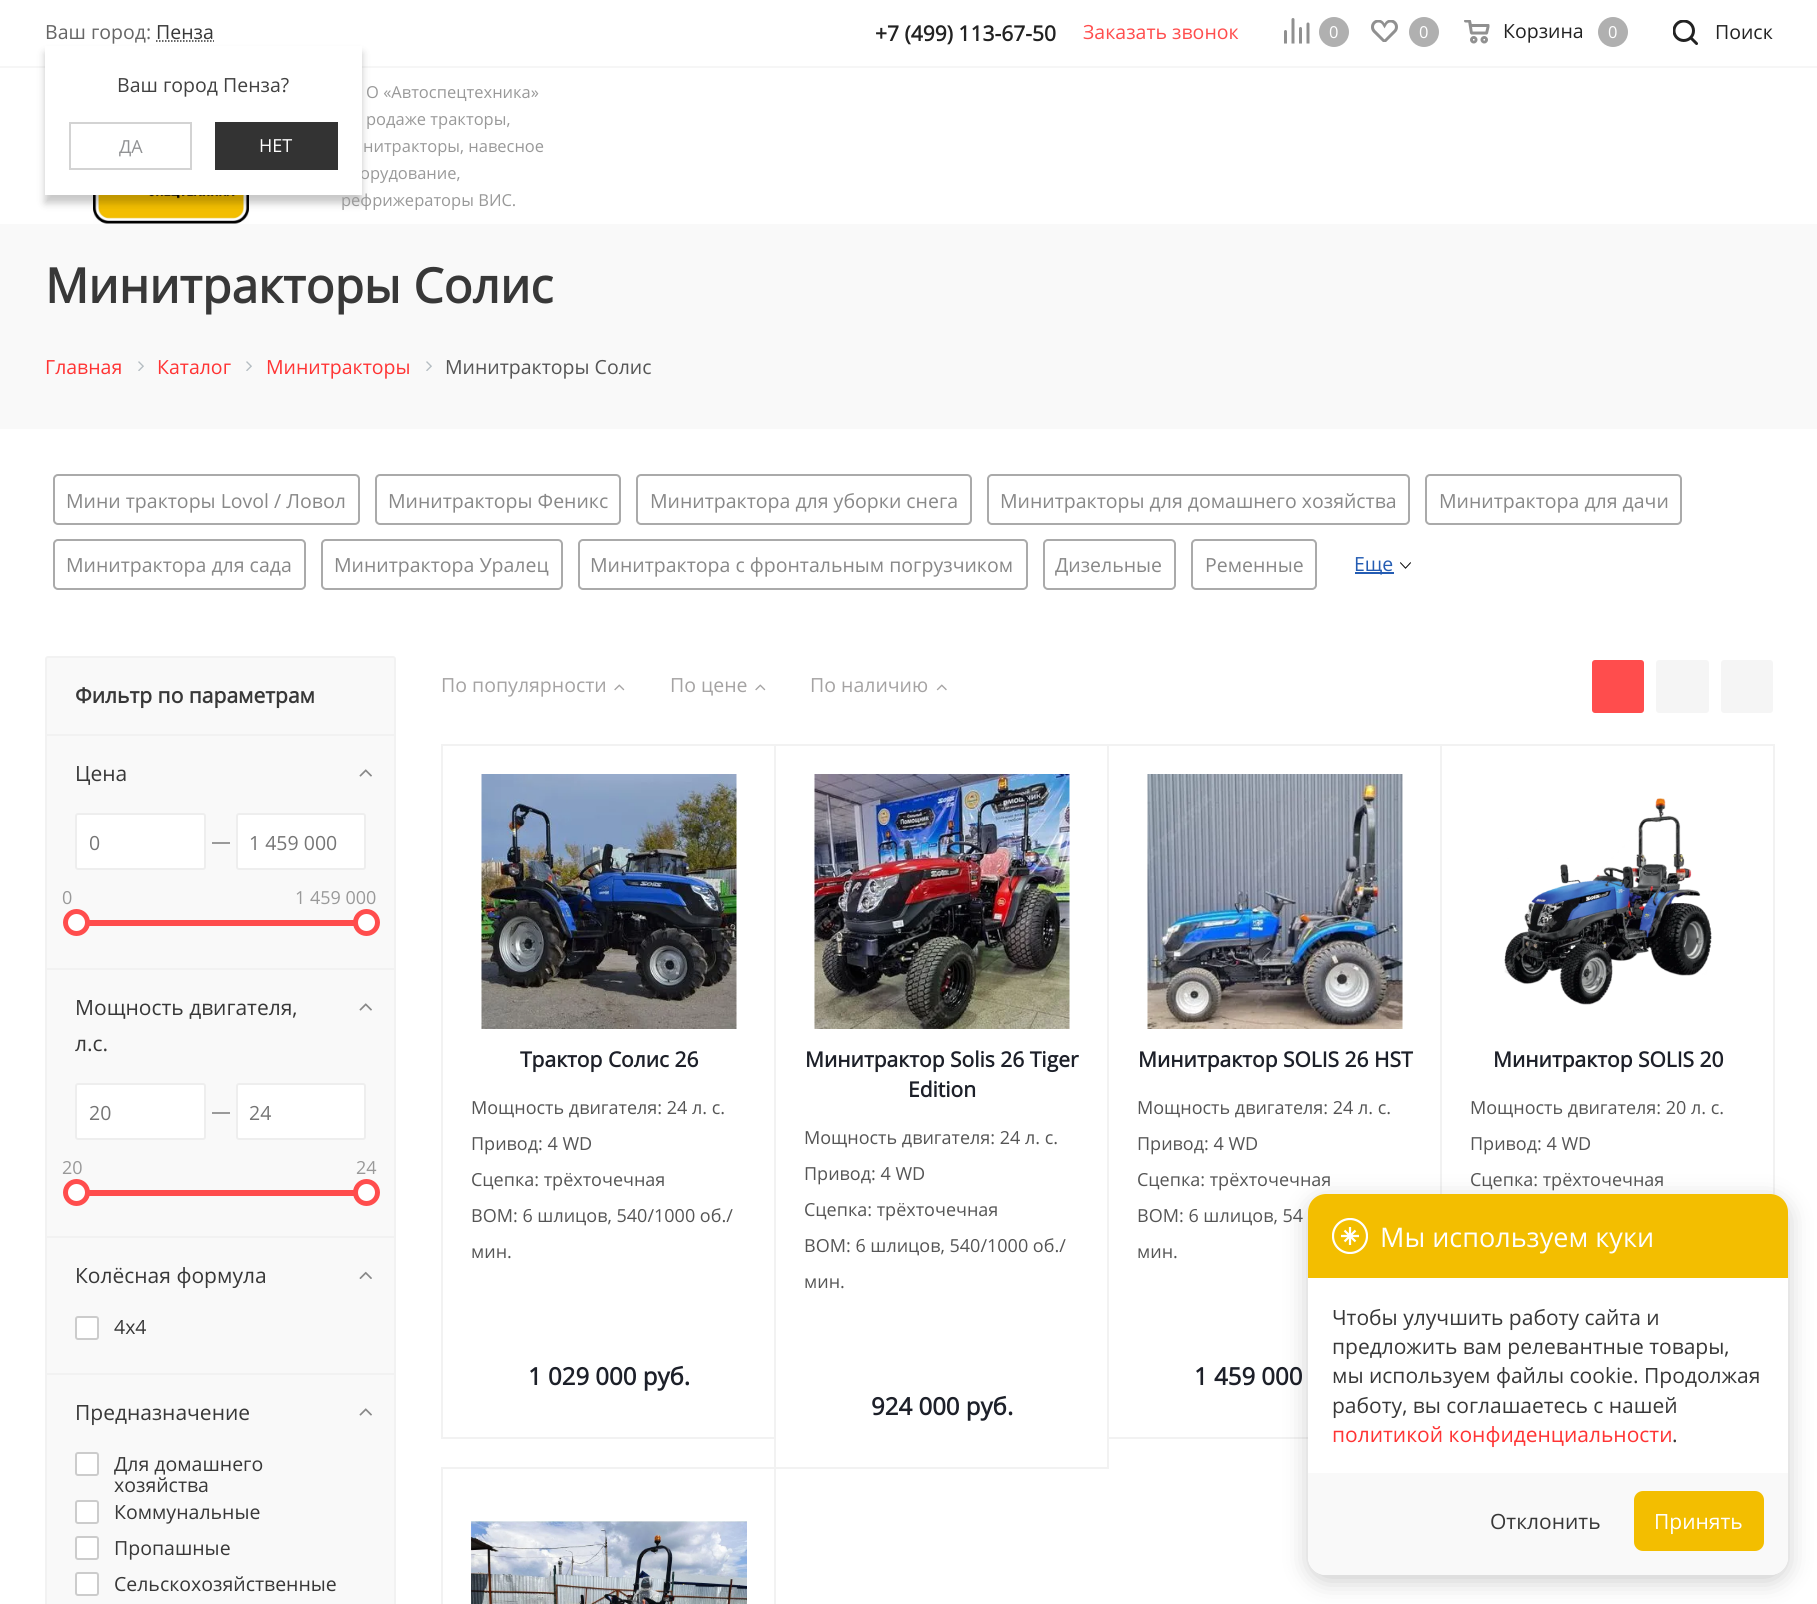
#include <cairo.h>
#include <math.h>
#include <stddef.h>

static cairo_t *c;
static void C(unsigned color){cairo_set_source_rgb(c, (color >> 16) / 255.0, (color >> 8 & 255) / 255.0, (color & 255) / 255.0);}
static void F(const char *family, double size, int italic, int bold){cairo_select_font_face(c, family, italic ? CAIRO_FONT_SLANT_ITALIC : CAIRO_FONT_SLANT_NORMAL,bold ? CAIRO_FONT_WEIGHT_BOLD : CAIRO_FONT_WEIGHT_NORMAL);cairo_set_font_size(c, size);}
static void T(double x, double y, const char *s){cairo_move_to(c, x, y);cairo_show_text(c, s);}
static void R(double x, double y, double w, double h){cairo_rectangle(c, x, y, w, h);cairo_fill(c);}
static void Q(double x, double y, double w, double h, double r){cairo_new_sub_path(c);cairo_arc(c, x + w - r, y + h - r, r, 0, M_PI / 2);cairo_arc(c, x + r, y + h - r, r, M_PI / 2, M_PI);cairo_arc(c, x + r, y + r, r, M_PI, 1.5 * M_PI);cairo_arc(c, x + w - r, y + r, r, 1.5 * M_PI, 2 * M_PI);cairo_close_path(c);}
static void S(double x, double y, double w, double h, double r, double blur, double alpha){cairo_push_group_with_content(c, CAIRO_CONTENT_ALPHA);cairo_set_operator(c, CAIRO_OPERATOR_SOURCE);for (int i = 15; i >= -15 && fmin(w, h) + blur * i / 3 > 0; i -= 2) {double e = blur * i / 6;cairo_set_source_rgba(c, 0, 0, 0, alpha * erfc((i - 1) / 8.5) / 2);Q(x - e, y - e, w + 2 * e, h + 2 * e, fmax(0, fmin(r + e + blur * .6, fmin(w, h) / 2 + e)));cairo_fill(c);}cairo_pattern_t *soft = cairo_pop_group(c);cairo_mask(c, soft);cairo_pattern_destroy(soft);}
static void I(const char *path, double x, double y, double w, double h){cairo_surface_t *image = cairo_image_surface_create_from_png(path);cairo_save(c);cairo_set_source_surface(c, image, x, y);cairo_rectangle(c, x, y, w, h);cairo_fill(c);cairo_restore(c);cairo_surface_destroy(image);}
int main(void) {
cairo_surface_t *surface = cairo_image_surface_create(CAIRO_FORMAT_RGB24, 1817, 1604);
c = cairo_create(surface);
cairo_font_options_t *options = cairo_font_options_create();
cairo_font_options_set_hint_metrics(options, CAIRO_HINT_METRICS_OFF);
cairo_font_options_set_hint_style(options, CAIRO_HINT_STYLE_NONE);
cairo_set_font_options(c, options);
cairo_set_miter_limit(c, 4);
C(0xffffff);
cairo_paint(c);
C(0xf6f6f6);
R(0,66,1817,2);
F("Open Sans",19.5,0,0);
C(0x666666);
T(45,39,"Ваш город:");
C(0x383838);
T(156,39,"Пенза");
cairo_new_path(c);
cairo_move_to(c,156,41);
cairo_line_to(c,214,41);
C(0x333333);
cairo_set_line_width(c,1.5);
cairo_set_dash(c,(double[]){1.5,1.5},2,0);
cairo_stroke(c);
I("5.png",93,195,156,29);
C(0x000000);
S(45,53,317,150,0,4,.22);
F("Open Sans",16.5,0,0);
C(0x999999);
T(360,179,"орудование,");
T(341,206,"рефрижераторы ВИС.");
C(0xffffff);
R(45,46,317,149);
F("Open Sans",19.5,0,0);
C(0x414141);
T(117,92,"Ваш город Пенза?");
cairo_rectangle(c,70,123,121,46);
C(0xd3d3d3);
cairo_set_line_width(c,2);
cairo_set_dash(c,NULL,0,0);
cairo_stroke(c);
F("Open Sans",18,0,0);
C(0x919294);
T(119,153,"ДА");
C(0x333333);
R(215,122,123,48);
C(0xffffff);
T(259,152,"НЕТ");
F("Open Sans",21,0,1);
C(0x222222);
T(875,41,"+7 (499) 113-67-50");
F("Open Sans",19.5,0,0);
C(0xff4d4d);
T(1083,39,"Заказать звонок");
I("1.png",1284,18,26,26);
C(0xb0b0b0);
cairo_arc(c,1334,32,15,0,2 * M_PI);
cairo_fill(c);
F("Open Sans",16.5,0,0);
C(0xffffff);
T(1329,38,"0");
I("2.png",1371,20,27,22);
C(0xb0b0b0);
cairo_arc(c,1424,32,15,0,2 * M_PI);
cairo_fill(c);
C(0xffffff);
T(1419,38,"0");
I("3.png",1464,20,26,24);
F("Open Sans",19.5,0,0);
C(0x222222);
T(1503,38,"Корзина");
C(0xb0b0b0);
cairo_new_path(c);
cairo_arc(c,1613,32,15,0,2 * M_PI);
cairo_fill(c);
F("Open Sans",16.5,0,0);
C(0xffffff);
T(1608,38,"0");
I("4.png",1673,20,25,25);
F("Open Sans",19.5,0,0);
C(0x222222);
T(1715,39,"Поиск");
F("Open Sans",16.5,0,0);
C(0x999999);
T(366,98,"О «Автоспецтехника»");
T(366,125,"родаже тракторы,");
T(363,152,"нитракторы, навесное");
C(0xf9f9f9);
R(0,224,1817,205);
F("Open Sans",48,0,1);
C(0x383838);
T(45,303,"Минитракторы Солис");
F("Open Sans",19.5,0,0);
C(0xff3434);
T(45,374,"Главная");
I("6.png",138,361,6,10);
T(157,374,"Каталог");
I("6.png",246,361,6,10);
T(266,374,"Минитракторы");
I("6.png",426,361,6,10);
C(0x555555);
T(445,374,"Минитракторы Солис");
Q(54,475,305,49,4);
C(0xaaaaaa);
cairo_stroke(c);
C(0x888888);
T(66,508,"Мини тракторы Lovol / Ловол");
Q(376,475,244,49,4);
C(0xaaaaaa);
cairo_stroke(c);
C(0x888888);
T(388,508,"Минитракторы Феникс");
Q(637,475,334,49,4);
C(0xaaaaaa);
cairo_stroke(c);
C(0x888888);
T(650,508,"Минитрактора для уборки снега");
Q(988,475,421,49,4);
C(0xaaaaaa);
cairo_stroke(c);
C(0x888888);
T(1000,508,"Минитракторы для домашнего хозяйства");
Q(1426,475,255,49,4);
C(0xaaaaaa);
cairo_stroke(c);
C(0x888888);
T(1439,508,"Минитрактора для дачи");
Q(54,540,251,49,4);
C(0xaaaaaa);
cairo_stroke(c);
C(0x888888);
T(66,572,"Минитрактора для сада");
Q(322,540,240,49,4);
C(0xaaaaaa);
cairo_stroke(c);
C(0x888888);
T(334,572,"Минитрактора Уралец");
Q(579,540,448,49,4);
C(0xaaaaaa);
cairo_stroke(c);
C(0x888888);
T(590,572,"Минитрактора с фронтальным погрузчиком");
Q(1044,540,131,49,4);
C(0xaaaaaa);
cairo_stroke(c);
C(0x888888);
T(1055,572,"Дизельные");
Q(1192,540,124,49,4);
C(0xaaaaaa);
cairo_stroke(c);
C(0x888888);
T(1205,572,"Ременные");
C(0x245cb3);
R(1355,572,39,2);
T(1354,571,"Еще");
I("7.png",1400,562,11,7);
C(0xf9f9f9);
Q(46,657,349,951,2);
cairo_fill_preserve(c);
C(0xf2f2f2);
cairo_stroke(c);
R(47,734,348,2);
F("Open Sans",21,0,1);
C(0x383838);
T(75,703,"Фильтр по параметрам");
C(0xf2f2f2);
R(47,968,348,2);
F("Open Sans",21,0,0);
C(0x383838);
T(75,781,"Цена");
I("8.png",359,769,13,8);
C(0xffffff);
Q(76,814,129,55,2);
cairo_fill_preserve(c);
C(0xeeeeee);
cairo_stroke(c);
F("Open Sans",19.5,0,0);
C(0x757575);
T(89,850,"0");
C(0x9a9a9a);
R(212,842,18,2);
C(0xffffff);
Q(237,814,128,55,2);
cairo_fill_preserve(c);
C(0xeeeeee);
cairo_stroke(c);
C(0x757575);
T(249,850,"1 459 000");
F("Open Sans",18,0,0);
C(0x999999);
T(62,904,"0");
T(295,904,"1 459 000");
C(0xff4d4d);
R(89,920,265,6);
C(0xffffff);
cairo_new_path(c);
cairo_arc(c,76.5,922.5,11,0,2 * M_PI);
cairo_fill_preserve(c);
C(0xff4d4d);
cairo_set_line_width(c,5);
cairo_stroke(c);
C(0xffffff);
cairo_arc(c,366.5,922.5,11,0,2 * M_PI);
cairo_fill_preserve(c);
C(0xff4d4d);
cairo_stroke(c);
C(0xf2f2f2);
R(47,1236,348,2);
F("Open Sans",21,0,0);
C(0x383838);
T(75,1015,"Мощность двигателя,");
T(75,1051,"л.с.");
I("8.png",359,1003,13,8);
C(0xffffff);
Q(76,1084,129,55,2);
cairo_fill_preserve(c);
C(0xeeeeee);
cairo_set_line_width(c,2);
cairo_stroke(c);
F("Open Sans",19.5,0,0);
C(0x757575);
T(89,1120,"20");
C(0x9a9a9a);
R(212,1112,18,2);
C(0xffffff);
Q(237,1084,128,55,2);
cairo_fill_preserve(c);
C(0xeeeeee);
cairo_stroke(c);
C(0x757575);
T(249,1120,"24");
F("Open Sans",18,0,0);
C(0x999999);
T(62,1174,"20");
T(356,1174,"24");
C(0xff4d4d);
R(89,1190,265,6);
C(0xffffff);
cairo_new_path(c);
cairo_arc(c,76.5,1192.5,11,0,2 * M_PI);
cairo_fill_preserve(c);
C(0xff4d4d);
cairo_set_line_width(c,5);
cairo_stroke(c);
C(0xffffff);
cairo_arc(c,366.5,1192.5,11,0,2 * M_PI);
cairo_fill_preserve(c);
C(0xff4d4d);
cairo_stroke(c);
C(0xf2f2f2);
R(47,1373,348,2);
F("Open Sans",21,0,0);
C(0x383838);
T(75,1283,"Колёсная формула");
I("9.png",359,1271,13,8);
C(0xffffff);
Q(76,1317,22,22,2);
cairo_fill_preserve(c);
C(0xcccccc);
cairo_set_line_width(c,2);
cairo_stroke(c);
F("Open Sans",19.5,0,0);
C(0x383838);
T(114,1334,"4х4");
F("Open Sans",21,0,0);
T(75,1420,"Предназначение");
I("8.png",359,1408,13,8);
C(0xffffff);
Q(76,1453,22,22,2);
cairo_fill_preserve(c);
C(0xcccccc);
cairo_stroke(c);
F("Open Sans",19.5,0,0);
C(0x383838);
T(114,1471,"Для домашнего");
T(114,1492,"хозяйства");
C(0xffffff);
Q(76,1501,22,22,2);
cairo_fill_preserve(c);
C(0xcccccc);
cairo_stroke(c);
C(0x383838);
T(114,1519,"Коммунальные");
C(0xffffff);
Q(76,1537,22,22,2);
cairo_fill_preserve(c);
C(0xcccccc);
cairo_stroke(c);
C(0x383838);
T(114,1555,"Пропашные");
C(0xffffff);
Q(76,1573,22,22,2);
cairo_fill_preserve(c);
C(0xcccccc);
cairo_stroke(c);
C(0x383838);
T(114,1591,"Сельскохозяйственные");
C(0xa5a3a3);
T(441,692,"По популярности");
I("10.png",614,684,11,7);
T(670,692,"По цене");
I("10.png",755,684,11,7);
T(810,692,"По наличию");
I("11.png",936,684,11,7);
C(0xff4d4d);
Q(1592,660,52,53,3);
cairo_fill(c);
C(0xf5f5f5);
Q(1656,660,53,53,3);
cairo_fill(c);
Q(1721,660,52,53,3);
cairo_fill(c);
cairo_rectangle(c,442,745,333,693);
C(0xf2f2f2);
cairo_stroke(c);
I("12.png",481,774,256,255);
F("Open Sans",21,0,1);
C(0x1d2029);
T(520,1067,"Трактор Солис 26");
F("Open Sans",18,0,0);
C(0x555555);
T(471,1114,"Мощность двигателя: 24 л. с.");
T(471,1150,"Привод: 4 WD");
T(471,1186,"Сцепка: трёхточечная");
T(471,1222,"ВОМ: 6 шлицов, 540/1000 об./");
T(471,1258,"мин.");
F("Open Sans",24,0,1);
C(0x1d2029);
T(528,1385,"1 029 000 руб.");
cairo_rectangle(c,775,745,333,723);
C(0xf2f2f2);
cairo_stroke(c);
I("13.png",814,774,256,255);
F("Open Sans",21,0,1);
C(0x1d2029);
T(805,1067,"Минитрактор Solis 26 Tiger");
T(908,1097,"Edition");
F("Open Sans",18,0,0);
C(0x555555);
T(804,1144,"Мощность двигателя: 24 л. с.");
T(804,1180,"Привод: 4 WD");
T(804,1216,"Сцепка: трёхточечная");
T(804,1252,"ВОМ: 6 шлицов, 540/1000 об./");
T(804,1288,"мин.");
F("Open Sans",24,0,1);
C(0x1d2029);
T(871,1415,"924 000 руб.");
cairo_rectangle(c,1108,745,333,693);
C(0xf2f2f2);
cairo_stroke(c);
I("14.png",1147,774,256,255);
F("Open Sans",21,0,1);
C(0x1d2029);
T(1138,1067,"Минитрактор SOLIS 26 HST");
F("Open Sans",18,0,0);
C(0x555555);
T(1137,1114,"Мощность двигателя: 24 л. с.");
T(1137,1150,"Привод: 4 WD");
T(1137,1186,"Сцепка: трёхточечная");
T(1137,1222,"ВОМ: 6 шлицов, 54");
T(1137,1258,"мин.");
F("Open Sans",24,0,1);
C(0x1d2029);
T(1194,1385,"1 459 000");
cairo_rectangle(c,1441,745,333,693);
C(0xf2f2f2);
cairo_stroke(c);
I("15.png",1504,798,208,207);
F("Open Sans",21,0,1);
C(0x1d2029);
T(1493,1067,"Минитрактор SOLIS 20");
F("Open Sans",18,0,0);
C(0x555555);
T(1470,1114,"Мощность двигателя: 20 л. с.");
T(1470,1150,"Привод: 4 WD");
T(1470,1186,"Сцепка: трёхточечная");
cairo_rectangle(c,442,1468,333,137);
C(0xf2f2f2);
cairo_stroke(c);
I("16.png",471,1521,276,83);
C(0x000000);
S(1308,1200,480,381,18,12,.2);
C(0xffffff);
Q(1308,1194,480,381,18);
cairo_fill(c);
C(0xf3be00);
cairo_new_path(c);
cairo_move_to(c,1326,1194);
cairo_line_to(c,1770,1194);
cairo_curve_to(c,1780,1194,1788,1202,1788,1212);
cairo_line_to(c,1788,1278);
cairo_line_to(c,1308,1278);
cairo_line_to(c,1308,1212);
cairo_curve_to(c,1308,1202,1316,1194,1326,1194);
cairo_close_path(c);
cairo_fill(c);
cairo_save(c);
cairo_rectangle(c,1332,1218,36,36);
cairo_clip(c);
cairo_arc(c,1350,1236,17,0,2 * M_PI);
C(0xffffff);
cairo_set_line_width(c,2.2);
cairo_stroke(c);
cairo_restore(c);
cairo_new_path(c);
cairo_move_to(c,1350,1227);
cairo_line_to(c,1350,1245);
cairo_move_to(c,1341,1236);
cairo_line_to(c,1359,1236);
cairo_move_to(c,1344.5,1230.5);
cairo_line_to(c,1355.5,1241.5);
cairo_move_to(c,1344.5,1241.5);
cairo_line_to(c,1355.5,1230.5);
C(0xffffff);
cairo_set_line_width(c,2.2);
cairo_stroke(c);
F("Open Sans",27,0,0);
T(1380,1247,"Мы используем куки");
F("Open Sans",21,0,0);
C(0x383838);
T(1332,1325,"Чтобы улучшить работу сайта и");
T(1332,1354,"предложить вам релевантные товары,");
T(1332,1383,"мы используем файлы cookie. Продолжая");
T(1332,1413,"работу, вы соглашаетесь с нашей");
C(0xff3434);
T(1332,1442,"политикой конфиденциальности");
C(0x383838);
T(1672,1442,".");
C(0xf9f9f9);
cairo_new_path(c);
cairo_move_to(c,1308,1473);
cairo_line_to(c,1788,1473);
cairo_line_to(c,1788,1557);
cairo_curve_to(c,1788,1567,1780,1575,1770,1575);
cairo_line_to(c,1326,1575);
cairo_curve_to(c,1316,1575,1308,1567,1308,1557);
cairo_close_path(c);
cairo_fill(c);
C(0x383838);
T(1490,1529,"Отклонить");
C(0xf3be00);
Q(1634,1491,130,60,9);
cairo_fill(c);
C(0xffffff);
T(1654,1529,"Принять");
cairo_surface_write_to_png(surface, "o.png");
cairo_font_options_destroy(options);
cairo_destroy(c);
cairo_surface_destroy(surface);
return 0;
}
